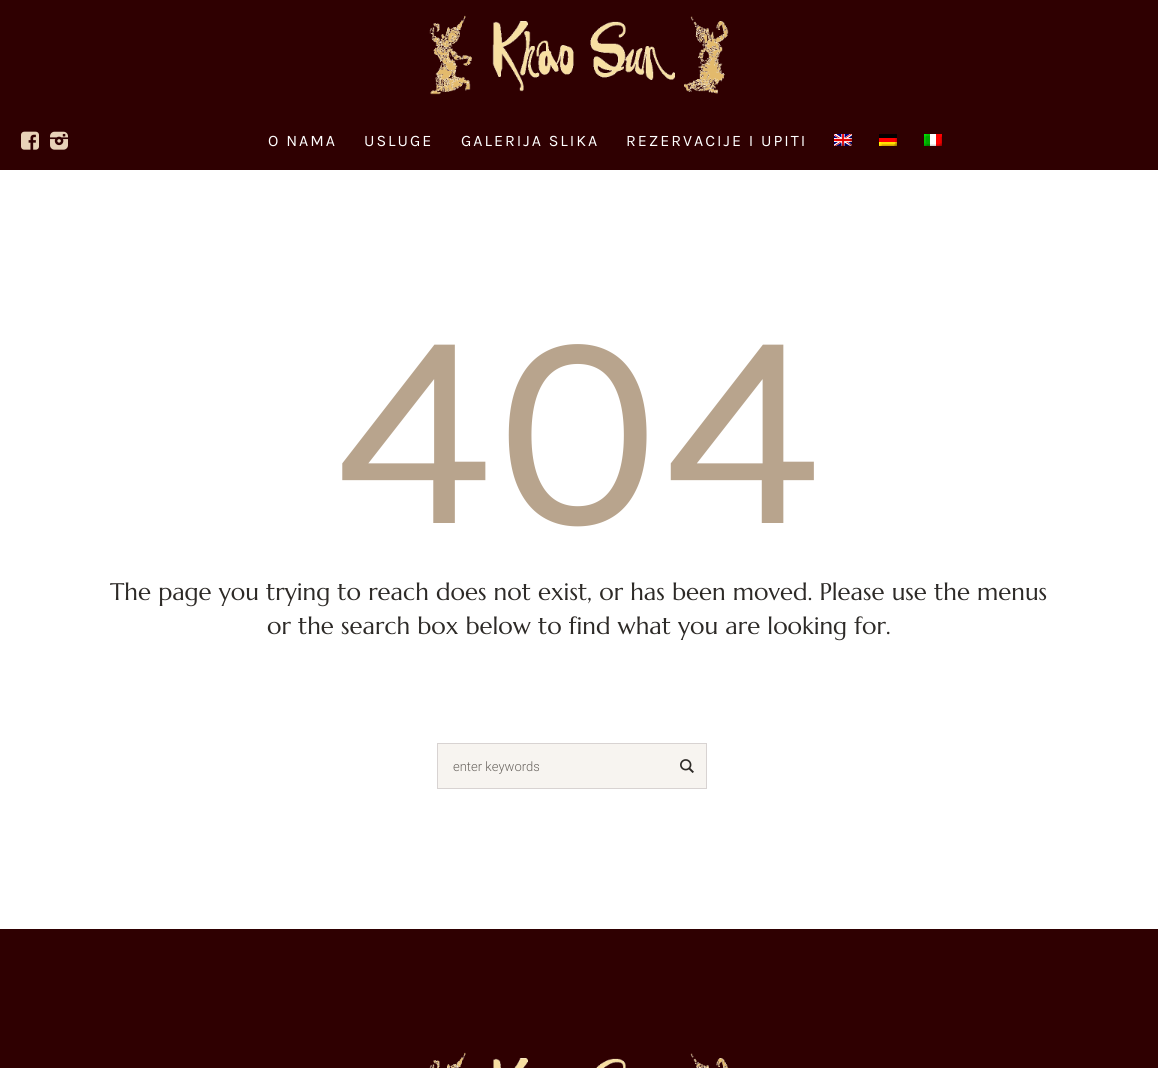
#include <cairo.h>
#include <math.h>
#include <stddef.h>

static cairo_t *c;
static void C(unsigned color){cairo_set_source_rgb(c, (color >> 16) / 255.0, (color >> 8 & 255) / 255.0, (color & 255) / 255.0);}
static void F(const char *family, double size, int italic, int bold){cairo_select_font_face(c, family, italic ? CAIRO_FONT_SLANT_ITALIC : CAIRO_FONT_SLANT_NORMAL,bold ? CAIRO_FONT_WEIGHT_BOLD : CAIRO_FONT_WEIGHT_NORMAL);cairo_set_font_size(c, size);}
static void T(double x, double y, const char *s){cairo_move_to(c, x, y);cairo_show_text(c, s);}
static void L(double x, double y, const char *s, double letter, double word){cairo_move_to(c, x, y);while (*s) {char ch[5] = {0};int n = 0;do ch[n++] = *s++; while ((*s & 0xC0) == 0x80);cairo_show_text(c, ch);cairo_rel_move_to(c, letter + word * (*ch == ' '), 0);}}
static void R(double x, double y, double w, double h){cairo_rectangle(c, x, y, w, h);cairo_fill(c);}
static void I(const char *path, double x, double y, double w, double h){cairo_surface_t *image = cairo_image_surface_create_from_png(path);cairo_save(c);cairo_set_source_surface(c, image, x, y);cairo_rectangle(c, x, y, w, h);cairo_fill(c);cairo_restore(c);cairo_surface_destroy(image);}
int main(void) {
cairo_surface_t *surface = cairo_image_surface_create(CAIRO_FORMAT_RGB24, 1158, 1068);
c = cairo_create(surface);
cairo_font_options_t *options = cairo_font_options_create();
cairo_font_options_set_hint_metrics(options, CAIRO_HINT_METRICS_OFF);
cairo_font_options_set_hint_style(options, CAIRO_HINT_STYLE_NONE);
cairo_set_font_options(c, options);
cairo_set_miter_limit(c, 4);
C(0x2f0001);
cairo_paint(c);
I("1.png",429,15,300,80);
I("2.png",21,131,18,19);
I("3.png",50,131,18,19);
F("Karla",16,0,0);
C(0xffffff);
L(268,146,"O NAMA",2,0);
L(364,146,"USLUGE",2,0);
L(461,146,"GALERIJA SLIKA",2,0);
L(626,146,"REZERVACIJE I UPITI",2,0);
I("4.png",834,134,18,12);
I("5.png",879,134,18,12);
I("6.png",924,134,18,12);
R(0,170,1158,759);
F("Karla",280,0,0);
C(0xb8a48d);
L(335,523,"404",3,0);
F("Marcellus",24,0,0);
C(0x2d2a27);
T(110,600,"The page you trying to reach does not exist, or has been moved. Please use the menus");
T(267,634,"or the search box below to find what you are looking for.");
C(0xf7f4f0);
cairo_rectangle(c,437.5,743.5,269,45);
cairo_fill_preserve(c);
C(0xd8d3d2);
cairo_set_line_width(c,1);
cairo_stroke(c);
F("Roboto Light",13,0,0);
C(0x6a6560);
T(453,771,"enter keywords");
I("7.png",680,759,14,14);
I("8.png",429,1052,300,16);
cairo_surface_write_to_png(surface, "o.png");
cairo_font_options_destroy(options);
cairo_destroy(c);
cairo_surface_destroy(surface);
return 0;
}
